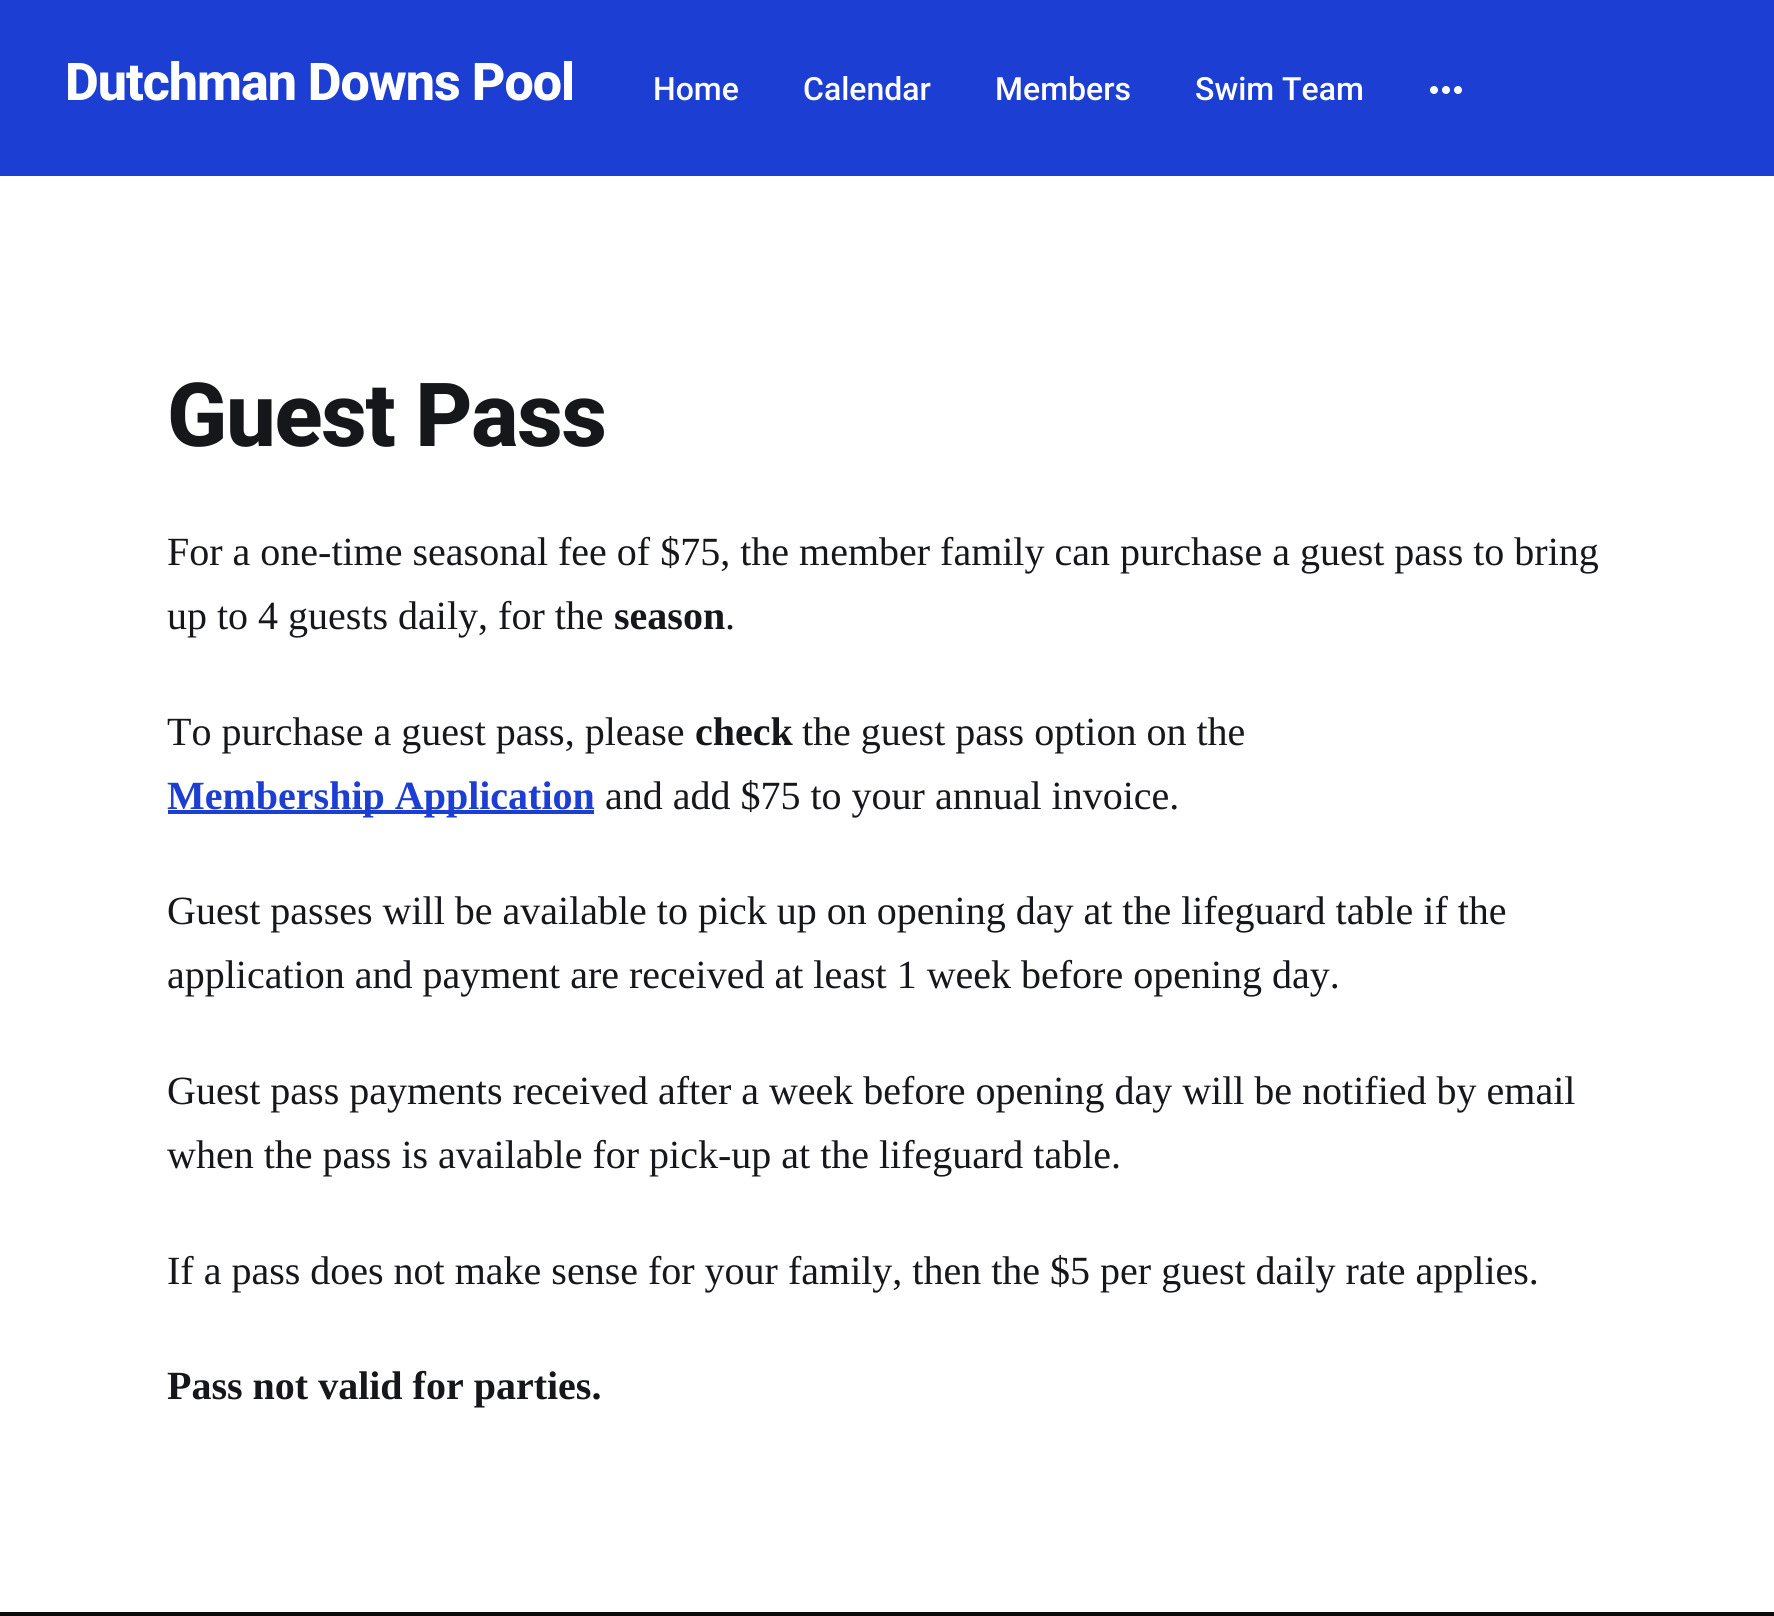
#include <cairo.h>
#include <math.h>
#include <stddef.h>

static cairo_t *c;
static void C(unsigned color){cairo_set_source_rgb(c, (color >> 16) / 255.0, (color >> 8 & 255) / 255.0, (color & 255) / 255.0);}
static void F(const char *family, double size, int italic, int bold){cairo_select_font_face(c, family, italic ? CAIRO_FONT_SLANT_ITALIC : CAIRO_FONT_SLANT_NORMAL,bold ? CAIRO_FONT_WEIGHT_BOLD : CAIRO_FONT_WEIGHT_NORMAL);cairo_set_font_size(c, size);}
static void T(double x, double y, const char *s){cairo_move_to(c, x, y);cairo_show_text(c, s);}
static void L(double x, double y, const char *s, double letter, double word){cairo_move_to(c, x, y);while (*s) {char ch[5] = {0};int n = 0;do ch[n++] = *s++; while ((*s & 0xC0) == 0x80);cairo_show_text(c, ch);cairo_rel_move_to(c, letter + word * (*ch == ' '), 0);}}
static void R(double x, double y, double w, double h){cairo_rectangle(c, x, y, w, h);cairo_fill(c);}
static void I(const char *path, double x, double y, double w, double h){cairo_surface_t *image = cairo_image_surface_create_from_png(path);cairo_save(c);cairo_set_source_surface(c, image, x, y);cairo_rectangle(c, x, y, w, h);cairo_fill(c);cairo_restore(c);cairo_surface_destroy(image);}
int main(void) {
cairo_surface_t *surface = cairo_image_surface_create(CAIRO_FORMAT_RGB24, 1774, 1616);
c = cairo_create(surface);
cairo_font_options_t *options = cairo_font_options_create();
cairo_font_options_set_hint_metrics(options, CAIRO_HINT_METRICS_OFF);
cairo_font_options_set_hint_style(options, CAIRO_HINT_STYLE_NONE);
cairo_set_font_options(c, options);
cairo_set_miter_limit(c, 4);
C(0xffffff);
cairo_paint(c);
C(0x1c3ed3);
R(0,0,1774,176);
F("Roboto ExtraBold",52,0,0);
C(0xffffff);
L(65,100,"Dutchman Downs Pool",-1,0);
F("Roboto Medium",32,0,0);
T(653,100,"Home");
T(803,100,"Calendar");
T(995,100,"Members");
T(1195,100,"Swim Team");
I("1.png",1430,86,32,8);
F("Roboto ExtraBold",88.5,0,0);
C(0x15171a);
L(167,446,"Guest Pass",-1.25,0);
F("Liberation Serif",40,0,0);
T(167,565,"For a one-time seasonal fee of $75, the member family can purchase a guest pass to bring");
T(167,629,"up to 4 guests daily, for the");
F("Liberation Serif",40,0,1);
T(614,629,"season");
F("Liberation Serif",40,0,0);
T(725,629,".");
T(167,745,"To purchase a guest pass, please");
F("Liberation Serif",40,0,1);
T(695,745,"check");
F("Liberation Serif",40,0,0);
T(802,745,"the guest pass option on the");
C(0x1c3ed3);
R(168,810,426,4);
F("Liberation Serif",40,0,1);
T(167,809,"Membership Application");
F("Liberation Serif",40,0,0);
C(0x15171a);
T(605,809,"and add $75 to your annual invoice.");
T(167,924,"Guest passes will be available to pick up on opening day at the lifeguard table if the");
T(167,988,"application and payment are received at least 1 week before opening day.");
T(167,1104,"Guest pass payments received after a week before opening day will be notified by email");
T(167,1168,"when the pass is available for pick-up at the lifeguard table.");
T(167,1284,"If a pass does not make sense for your family, then the $5 per guest daily rate applies.");
F("Liberation Serif",40,0,1);
T(167,1399,"Pass not valid for parties.");
C(0x0a0b0c);
R(0,1612,1774,4);
cairo_surface_write_to_png(surface, "o.png");
cairo_font_options_destroy(options);
cairo_destroy(c);
cairo_surface_destroy(surface);
return 0;
}
